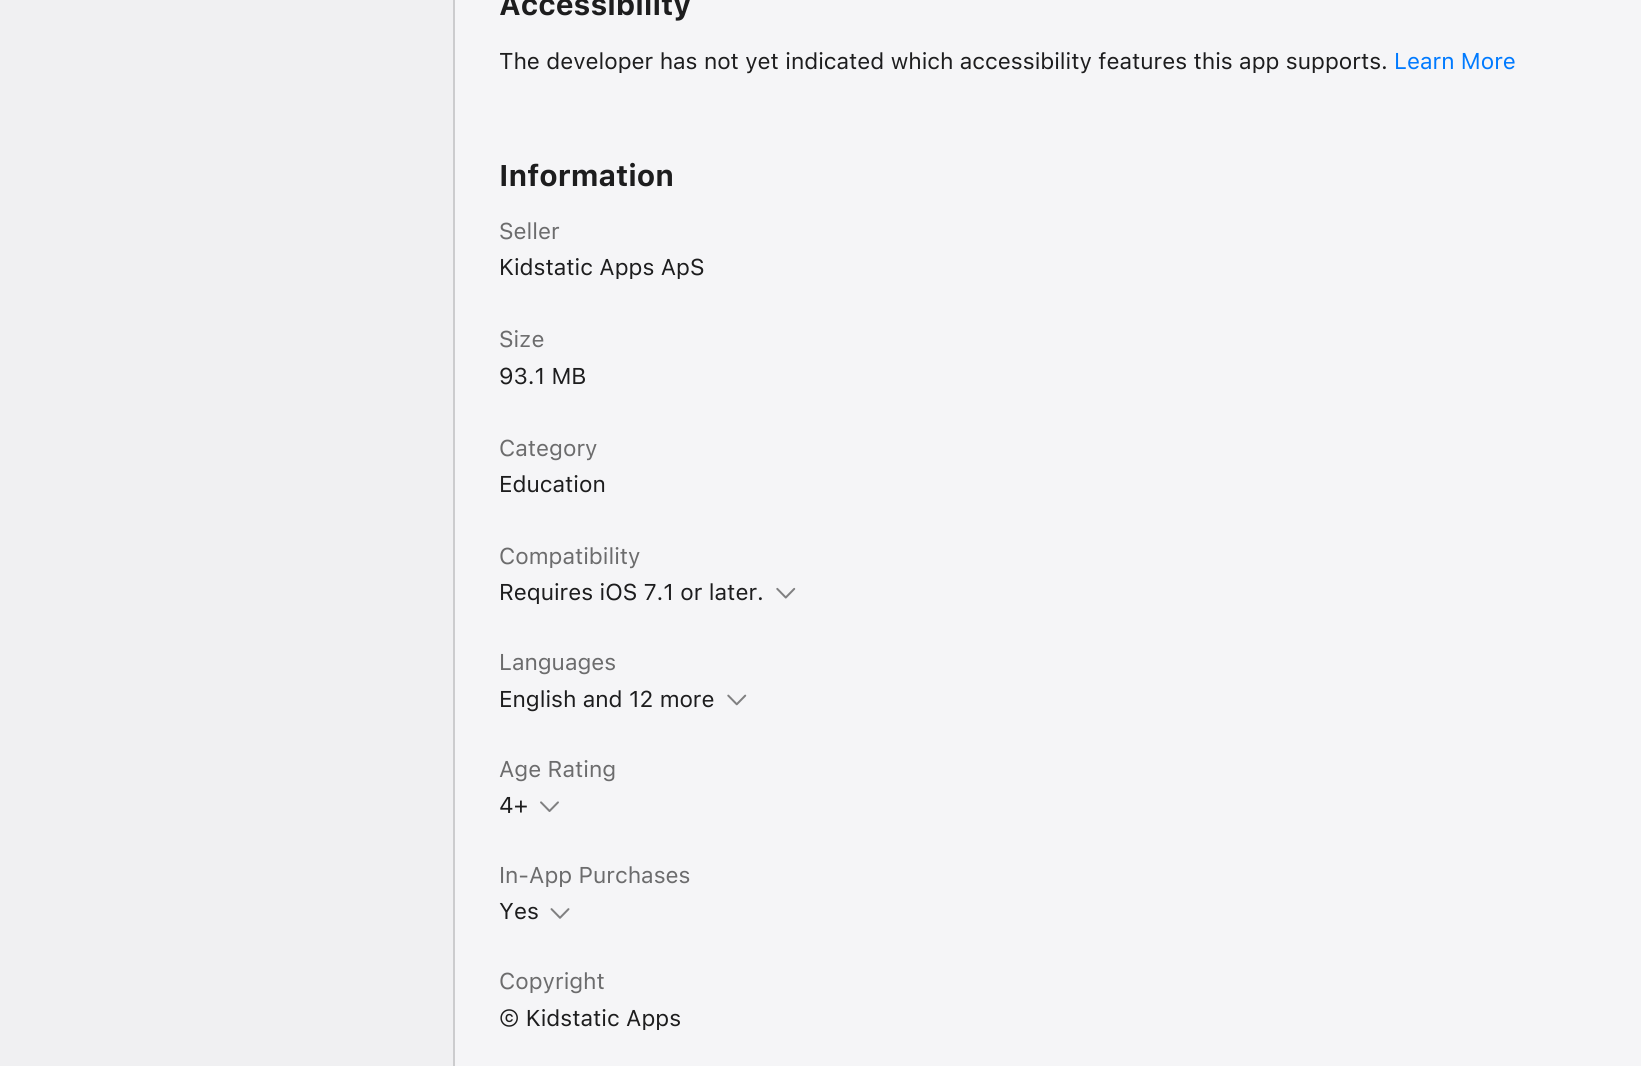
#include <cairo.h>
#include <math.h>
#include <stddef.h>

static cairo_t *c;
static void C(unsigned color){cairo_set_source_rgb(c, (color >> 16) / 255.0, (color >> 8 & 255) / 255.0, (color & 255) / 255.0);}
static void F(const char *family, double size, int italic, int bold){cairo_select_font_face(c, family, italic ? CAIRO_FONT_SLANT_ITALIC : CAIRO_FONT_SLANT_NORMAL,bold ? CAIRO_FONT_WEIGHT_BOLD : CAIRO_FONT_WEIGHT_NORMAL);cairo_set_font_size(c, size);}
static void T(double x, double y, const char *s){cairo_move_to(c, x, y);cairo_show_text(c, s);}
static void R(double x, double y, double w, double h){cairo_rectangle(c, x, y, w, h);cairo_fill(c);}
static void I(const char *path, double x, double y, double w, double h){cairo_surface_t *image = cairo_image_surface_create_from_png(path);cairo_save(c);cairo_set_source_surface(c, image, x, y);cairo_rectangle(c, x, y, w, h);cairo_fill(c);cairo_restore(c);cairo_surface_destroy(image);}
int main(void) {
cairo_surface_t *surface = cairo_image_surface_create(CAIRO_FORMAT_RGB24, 1641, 1066);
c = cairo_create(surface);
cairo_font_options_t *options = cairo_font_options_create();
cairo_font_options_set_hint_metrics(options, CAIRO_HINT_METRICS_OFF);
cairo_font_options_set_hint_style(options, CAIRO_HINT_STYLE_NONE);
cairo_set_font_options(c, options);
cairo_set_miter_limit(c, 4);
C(0xf5f5f7);
cairo_paint(c);
C(0xf0f0f2);
R(0,0,453,1066);
C(0xccccce);
R(453,0,2,1066);
F("SF",29.75,0,1);
C(0x1d1d1e);
T(499,15,"Accessibility");
F("SF",22.75,0,0);
T(499,69,"The developer has not yet indicated which accessibility features this app supports.");
C(0x007aff);
T(1394,69,"Learn More");
F("SF",29.75,0,1);
C(0x1d1d1e);
T(499,186,"Information");
F("SF",22.75,0,0);
C(0x6c6c6d);
T(499,239,"Seller");
C(0x1d1d1e);
T(499,275,"Kidstatic Apps ApS");
C(0x6c6c6d);
T(499,347,"Size");
C(0x1d1d1e);
T(499,384,"93.1 MB");
C(0x6c6c6d);
T(499,456,"Category");
C(0x1d1d1e);
T(499,492,"Education");
C(0x6c6c6d);
T(499,564,"Compatibility");
C(0x1d1d1e);
T(499,600,"Requires iOS 7.1 or later.");
I("1.png",776,587,20,12);
C(0x6c6c6d);
T(499,670,"Languages");
C(0x1d1d1e);
T(499,707,"English and 12 more");
I("2.png",727,694,20,12);
C(0x6c6c6d);
T(499,777,"Age Rating");
C(0x1d1d1e);
T(499,813,"4+");
I("3.png",540,801,19,11);
C(0x6c6c6d);
T(499,883,"In-App Purchases");
C(0x1d1d1e);
T(499,919,"Yes");
I("4.png",550,908,20,11);
C(0x6c6c6d);
T(499,989,"Copyright");
C(0x1d1d1e);
T(499,1026,"© Kidstatic Apps");
cairo_surface_write_to_png(surface, "o.png");
cairo_font_options_destroy(options);
cairo_destroy(c);
cairo_surface_destroy(surface);
return 0;
}
